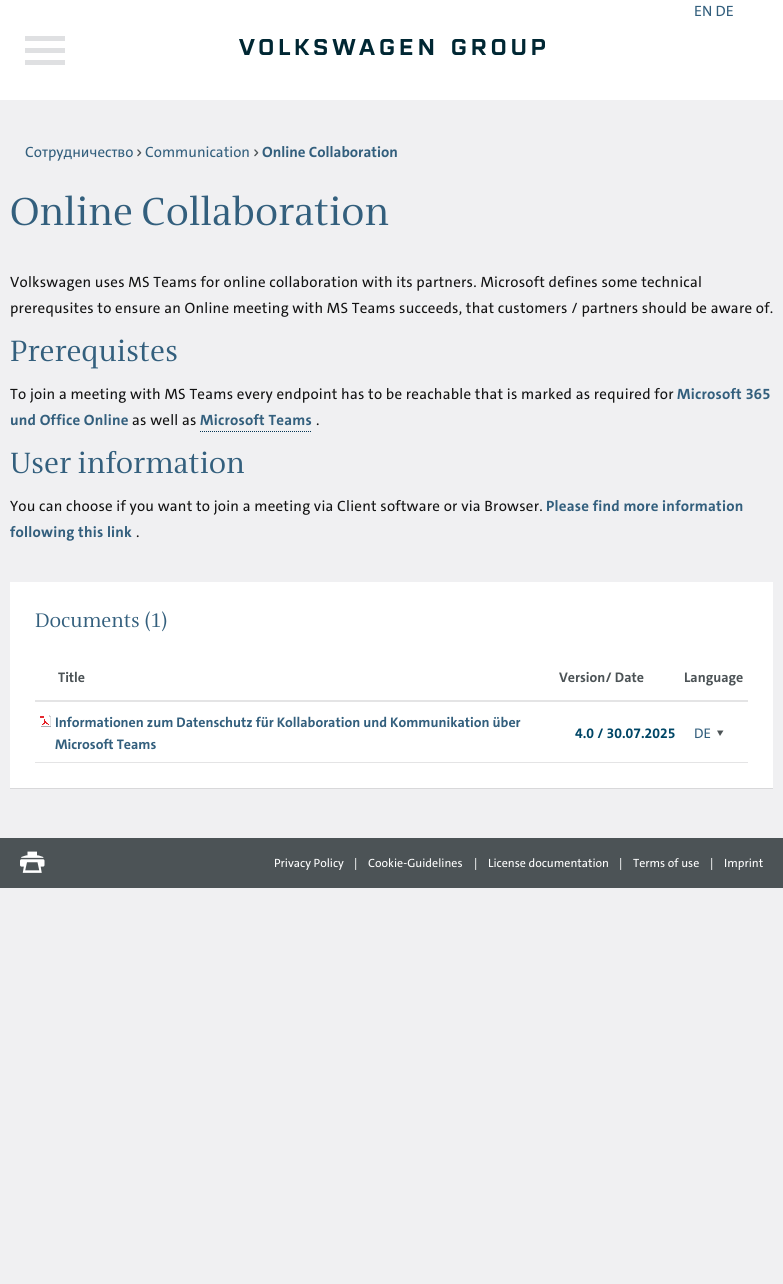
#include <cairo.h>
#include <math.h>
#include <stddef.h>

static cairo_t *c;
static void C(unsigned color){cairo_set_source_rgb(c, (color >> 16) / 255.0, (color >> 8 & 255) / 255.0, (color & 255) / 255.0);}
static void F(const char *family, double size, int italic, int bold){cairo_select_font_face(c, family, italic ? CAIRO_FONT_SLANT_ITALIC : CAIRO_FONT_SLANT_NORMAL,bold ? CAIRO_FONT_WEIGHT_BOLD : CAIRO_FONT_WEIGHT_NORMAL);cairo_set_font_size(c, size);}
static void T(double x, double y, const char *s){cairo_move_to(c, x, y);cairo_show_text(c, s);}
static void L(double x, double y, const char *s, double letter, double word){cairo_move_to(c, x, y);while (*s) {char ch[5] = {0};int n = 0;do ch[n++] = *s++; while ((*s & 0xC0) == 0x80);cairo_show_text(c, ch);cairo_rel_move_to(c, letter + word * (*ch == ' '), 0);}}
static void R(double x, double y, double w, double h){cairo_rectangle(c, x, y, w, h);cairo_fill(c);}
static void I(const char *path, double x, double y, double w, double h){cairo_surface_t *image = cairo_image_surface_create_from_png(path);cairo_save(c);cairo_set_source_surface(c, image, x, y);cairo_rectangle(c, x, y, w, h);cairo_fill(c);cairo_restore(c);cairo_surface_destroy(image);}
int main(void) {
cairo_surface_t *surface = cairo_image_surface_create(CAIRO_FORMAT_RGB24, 783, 1284);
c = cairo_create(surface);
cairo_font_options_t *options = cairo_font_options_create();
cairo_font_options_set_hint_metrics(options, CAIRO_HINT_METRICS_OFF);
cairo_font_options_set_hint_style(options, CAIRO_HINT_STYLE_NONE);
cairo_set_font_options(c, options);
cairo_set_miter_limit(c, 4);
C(0xf0f0f2);
cairo_paint(c);
C(0xffffff);
R(0,0,783,100);
I("1.png",239,39,306,16);
F("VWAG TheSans",15,0,0);
C(0x335f7d);
T(694,16,"EN DE");
C(0xdfe0e2);
R(25,36,40,5);
R(25,48,40,5);
R(25,60,40,5);
C(0x335f7d);
T(25,157,"Сотрудничество");
I("2.png",137,149,5,8);
T(145,157,"Communication");
I("2.png",254,149,5,8);
F("VWAG TheSans",15,0,1);
T(262,157,"Online Collaboration");
F("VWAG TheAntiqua",40,0,0);
T(10,225,"Online Collaboration");
F("VWAG TheSans",15,0,0);
C(0x131313);
L(10,287,"Volkswagen uses MS Teams for online collaboration with its partners. Microsoft defines some technical",.23,0);
L(10,313,"prerequsites to ensure an Online meeting with MS Teams succeeds, that customers / partners should be aware of.",.23,0);
F("VWAG TheAntiqua",30,0,0);
C(0x335f7d);
T(10,361,"Prerequistes");
F("VWAG TheSans",15,0,0);
C(0x131313);
L(10,399,"To join a meeting with MS Teams every endpoint has to be reachable that is marked as required for",.23,0);
F("VWAG TheSans",15,0,1);
C(0x335f7d);
L(677,399,"Microsoft 365",.23,0);
L(10,425,"und Office Online",.23,0);
F("VWAG TheSans",15,0,0);
C(0x131313);
L(132,425,"as well as",.23,0);
F("VWAG TheSans",15,0,1);
C(0x335f7d);
L(200,425,"Microsoft Teams",.23,0);
cairo_new_path(c);
cairo_move_to(c,200,431.5);
cairo_line_to(c,312,431.5);
C(0x053654);
cairo_set_line_width(c,1);
cairo_set_dash(c,(double[]){1,1},2,0);
cairo_stroke(c);
F("VWAG TheSans",15,0,0);
C(0x131313);
L(316,425,".",.23,0);
F("VWAG TheAntiqua",30,0,0);
C(0x335f7d);
T(10,473,"User information");
F("VWAG TheSans",15,0,0);
C(0x131313);
L(10,511,"You can choose if you want to join a meeting via Client software or via Browser.",.23,0);
F("VWAG TheSans",15,0,1);
C(0x335f7d);
L(546,511,"Please find more information",.23,0);
L(10,537,"following this link",.23,0);
F("VWAG TheSans",15,0,0);
C(0x131313);
L(136,537,".",.23,0);
C(0xd8d8da);
R(10,788,763,1);
C(0xffffff);
R(10,582,763,206);
F("VWAG TheAntiqua",20,0,0);
C(0x335f7d);
T(35,627,"Documents (1)");
C(0xe4e4e5);
R(35,700,713,2);
F("VWAG TheSans",14,0,1);
C(0x4c5356);
T(58,682,"Title");
T(559,682,"Version/ Date");
T(684,682,"Language");
C(0xe4e4e5);
R(35,762,713,1);
I("3.png",40,715,11,12);
C(0x335f7d);
T(55,727,"Informationen zum Datenschutz für Kollaboration und Kommunikation über");
T(55,749,"Microsoft Teams");
C(0x004666);
T(575,738,"4.0 / 30.07.2025");
F("VWAG TheSans",14,0,0);
C(0x335f7d);
T(694,738,"DE");
C(0x4c5356);
cairo_new_path(c);
cairo_move_to(c,723.5,730.5);
cairo_line_to(c,720,736);
cairo_line_to(c,717,730.5);
cairo_close_path(c);
cairo_fill(c);
R(0,838,783,50);
I("4.png",20,851,25,22);
F("VWAG TheSans",12,0,0);
C(0xffffff);
T(274,867,"Privacy Policy");
T(354,867,"|");
T(368,867,"Cookie-Guidelines");
T(474,867,"|");
T(488,867,"License documentation");
T(619,867,"|");
T(633,867,"Terms of use");
T(710,867,"|");
T(724,867,"Imprint");
cairo_surface_write_to_png(surface, "o.png");
cairo_font_options_destroy(options);
cairo_destroy(c);
cairo_surface_destroy(surface);
return 0;
}
